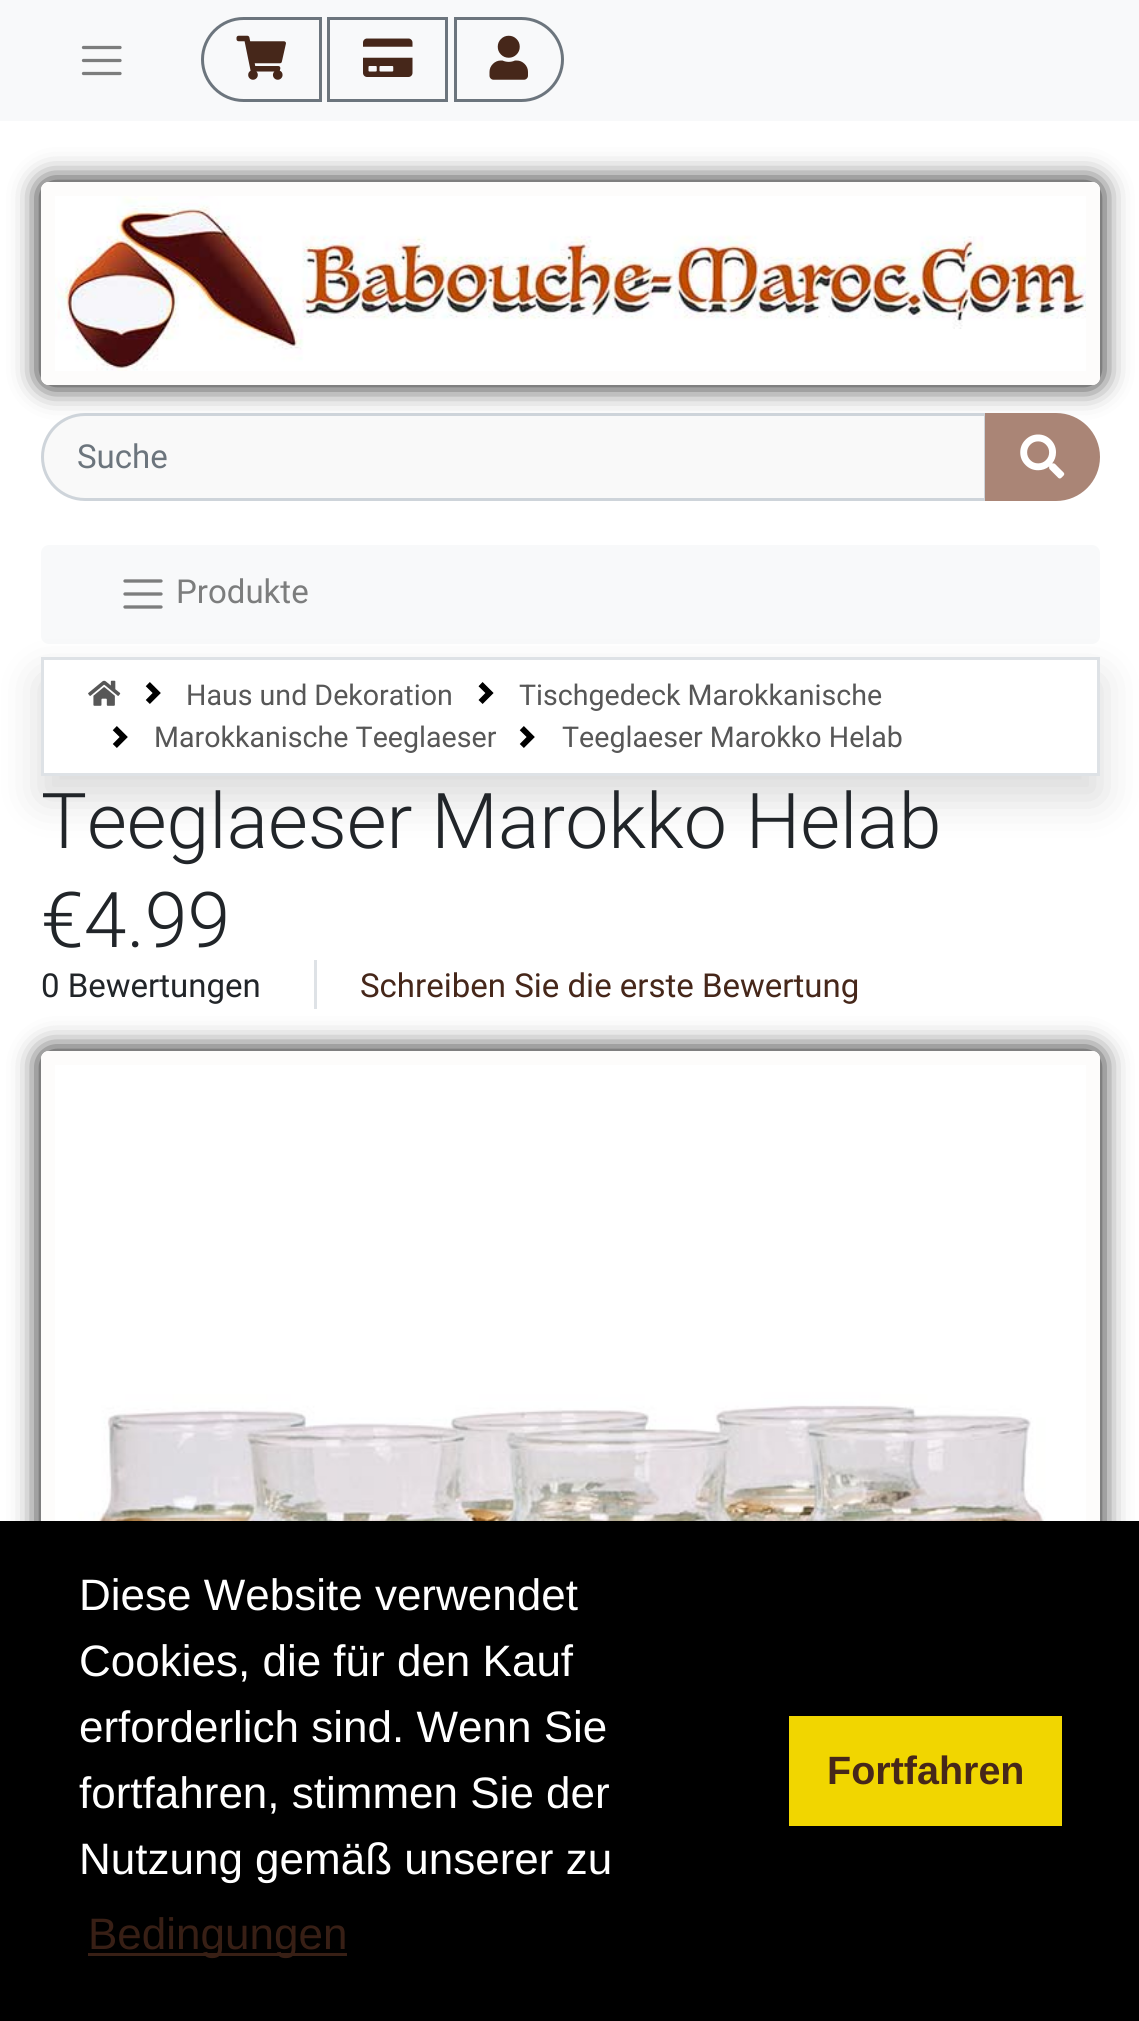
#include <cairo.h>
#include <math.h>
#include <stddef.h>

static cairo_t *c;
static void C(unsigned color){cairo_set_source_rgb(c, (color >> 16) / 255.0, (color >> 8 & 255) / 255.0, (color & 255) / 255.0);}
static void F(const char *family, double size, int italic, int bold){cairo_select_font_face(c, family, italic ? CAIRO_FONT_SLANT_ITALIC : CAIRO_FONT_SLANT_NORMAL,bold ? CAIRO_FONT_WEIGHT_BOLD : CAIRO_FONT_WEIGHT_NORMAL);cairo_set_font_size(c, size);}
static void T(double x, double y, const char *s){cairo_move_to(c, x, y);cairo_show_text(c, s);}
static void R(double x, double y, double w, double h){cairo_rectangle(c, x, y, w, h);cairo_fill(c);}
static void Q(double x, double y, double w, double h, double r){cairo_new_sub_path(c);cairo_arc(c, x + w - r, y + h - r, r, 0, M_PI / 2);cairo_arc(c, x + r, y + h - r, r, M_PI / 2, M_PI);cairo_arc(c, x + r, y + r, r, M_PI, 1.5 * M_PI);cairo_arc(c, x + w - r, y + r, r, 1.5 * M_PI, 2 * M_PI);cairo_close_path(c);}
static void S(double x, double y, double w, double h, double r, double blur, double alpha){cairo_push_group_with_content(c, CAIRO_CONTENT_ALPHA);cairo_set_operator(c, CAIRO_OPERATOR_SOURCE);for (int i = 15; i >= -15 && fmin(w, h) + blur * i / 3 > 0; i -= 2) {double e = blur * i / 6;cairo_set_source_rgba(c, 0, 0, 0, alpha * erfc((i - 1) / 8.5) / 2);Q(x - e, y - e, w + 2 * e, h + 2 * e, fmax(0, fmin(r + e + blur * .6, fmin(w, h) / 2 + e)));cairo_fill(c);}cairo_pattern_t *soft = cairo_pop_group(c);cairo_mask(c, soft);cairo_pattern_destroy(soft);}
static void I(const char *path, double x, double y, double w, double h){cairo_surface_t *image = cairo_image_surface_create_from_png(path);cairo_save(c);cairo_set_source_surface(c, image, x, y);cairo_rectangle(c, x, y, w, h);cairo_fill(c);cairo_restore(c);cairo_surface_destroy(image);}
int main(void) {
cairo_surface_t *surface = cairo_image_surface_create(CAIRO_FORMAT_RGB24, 1139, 2021);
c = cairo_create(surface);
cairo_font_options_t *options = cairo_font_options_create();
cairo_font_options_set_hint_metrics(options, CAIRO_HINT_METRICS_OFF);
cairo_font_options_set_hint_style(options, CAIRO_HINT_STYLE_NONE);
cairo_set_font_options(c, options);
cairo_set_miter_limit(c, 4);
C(0xffffff);
cairo_paint(c);
C(0xf8f9fa);
R(0,0,1139,121);
cairo_new_path(c);
cairo_move_to(c,83.5,47.5);
cairo_line_to(c,120,47.5);
cairo_move_to(c,83.5,60.5);
cairo_line_to(c,120,60.5);
cairo_move_to(c,83.5,73.5);
cairo_line_to(c,120,73.5);
C(0x7c7d7d);
cairo_set_line_width(c,3.3);
cairo_set_line_cap(c,CAIRO_LINE_CAP_ROUND);
cairo_stroke(c);
cairo_new_path(c);
cairo_move_to(c,243.5,18.5);
cairo_line_to(c,320.5,18.5);
cairo_line_to(c,320.5,100.5);
cairo_line_to(c,243.5,100.5);
cairo_curve_to(c,221,100.5,202.5,82,202.5,59.5);
cairo_curve_to(c,202.5,37,221,18.5,243.5,18.5);
cairo_close_path(c);
C(0x6c757d);
cairo_set_line_width(c,3);
cairo_set_line_cap(c,CAIRO_LINE_CAP_BUTT);
cairo_stroke(c);
I("1.png",236,35,50,45);
cairo_rectangle(c,328.5,18.5,118,82);
cairo_stroke(c);
I("2.png",363,38,50,39);
cairo_new_path(c);
cairo_move_to(c,455.5,18.5);
cairo_line_to(c,521.5,18.5);
cairo_curve_to(c,544,18.5,562.5,37,562.5,59.5);
cairo_curve_to(c,562.5,82,544,100.5,521.5,100.5);
cairo_line_to(c,455.5,100.5);
cairo_close_path(c);
cairo_stroke(c);
I("3.png",489,35,39,45);
cairo_save(c);
cairo_set_fill_rule(c,CAIRO_FILL_RULE_EVEN_ODD);
cairo_new_path(c);
cairo_move_to(c,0,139);
cairo_line_to(c,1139,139);
cairo_line_to(c,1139,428);
cairo_line_to(c,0,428);
cairo_close_path(c);
cairo_move_to(c,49,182);
cairo_line_to(c,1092,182);
cairo_curve_to(c,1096.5,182,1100,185.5,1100,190);
cairo_line_to(c,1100,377);
cairo_curve_to(c,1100,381.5,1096.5,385,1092,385);
cairo_line_to(c,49,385);
cairo_curve_to(c,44.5,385,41,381.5,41,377);
cairo_line_to(c,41,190);
cairo_curve_to(c,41,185.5,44.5,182,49,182);
cairo_close_path(c);
cairo_clip(c);
C(0x000000);
S(41,182,1059,203,8,14,1);
cairo_restore(c);
cairo_set_source_rgba(c,0.961,0.925,0.906,0.6);
Q(41,182,1059,203,8);
cairo_fill(c);
Q(48,189,1045,189,1);
cairo_set_source_rgba(c,1,1,1,0.7);
cairo_set_line_width(c,14);
cairo_stroke(c);
I("4.png",55,196,1031,175);
C(0xf9f9f9);
cairo_new_path(c);
cairo_move_to(c,85,414.5);
cairo_line_to(c,985.5,414.5);
cairo_line_to(c,985.5,499.5);
cairo_line_to(c,85,499.5);
cairo_curve_to(c,61.5,499.5,42.5,480.5,42.5,457);
cairo_curve_to(c,42.5,433.5,61.5,414.5,85,414.5);
cairo_close_path(c);
cairo_fill_preserve(c);
C(0xced4da);
cairo_set_line_width(c,3);
cairo_stroke(c);
F("Roboto",33,0,0);
C(0x6c757d);
T(77,468,"Suche");
C(0xaa8576);
cairo_new_path(c);
cairo_move_to(c,986.5,414.5);
cairo_line_to(c,1056,414.5);
cairo_curve_to(c,1079.5,414.5,1098.5,433.5,1098.5,457);
cairo_curve_to(c,1098.5,480.5,1079.5,499.5,1056,499.5);
cairo_line_to(c,986.5,499.5);
cairo_close_path(c);
cairo_fill_preserve(c);
cairo_stroke(c);
I("5.png",1020,434,45,45);
C(0xf8f9fa);
Q(41,545,1059,99,8);
cairo_fill(c);
cairo_new_path(c);
cairo_move_to(c,125,581);
cairo_line_to(c,161,581);
cairo_move_to(c,125,594);
cairo_line_to(c,161,594);
cairo_move_to(c,125,607);
cairo_line_to(c,161,607);
C(0x7c7d7d);
cairo_set_line_width(c,3.3);
cairo_set_line_cap(c,CAIRO_LINE_CAP_ROUND);
cairo_stroke(c);
T(176,603,"Produkte");
C(0x000000);
S(41,679,1059,119,0,22,.15);
C(0xffffff);
cairo_rectangle(c,42.5,658.5,1056,116);
cairo_fill_preserve(c);
C(0xdee2e6);
cairo_set_line_width(c,3);
cairo_set_line_cap(c,CAIRO_LINE_CAP_BUTT);
cairo_stroke(c);
I("6.png",88,680,33,26);
I("7.png",145,682,16,22);
F("Roboto",28.6,0,0);
C(0x575757);
T(186,705,"Haus und Dekoration");
I("8.png",478,682,16,22);
T(519,705,"Tischgedeck Marokkanische");
I("7.png",112,726,16,22);
T(154,747,"Marokkanische Teeglaeser");
I("7.png",519,726,16,22);
T(562,747,"Teeglaeser Marokko Helab");
F("Roboto Light",77,0,0);
C(0x212529);
T(41,848,"Teeglaeser Marokko Helab");
T(41,947,"€4.99");
F("Roboto",33,0,0);
T(41,997,"0 Bewertungen");
C(0xdee2e6);
R(314,960,3,49);
C(0x46271a);
T(360,997,"Schreiben Sie die erste Bewertung");
cairo_save(c);
cairo_set_fill_rule(c,CAIRO_FILL_RULE_EVEN_ODD);
cairo_new_path(c);
cairo_move_to(c,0,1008);
cairo_line_to(c,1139,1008);
cairo_line_to(c,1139,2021);
cairo_line_to(c,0,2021);
cairo_close_path(c);
cairo_move_to(c,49,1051);
cairo_line_to(c,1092,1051);
cairo_curve_to(c,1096.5,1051,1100,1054.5,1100,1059);
cairo_line_to(c,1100,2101);
cairo_curve_to(c,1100,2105.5,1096.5,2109,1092,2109);
cairo_line_to(c,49,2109);
cairo_curve_to(c,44.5,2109,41,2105.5,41,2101);
cairo_line_to(c,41,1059);
cairo_curve_to(c,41,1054.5,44.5,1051,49,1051);
cairo_close_path(c);
cairo_clip(c);
C(0x000000);
S(41,1051,1059,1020,8,14,1);
cairo_restore(c);
cairo_set_source_rgba(c,0.961,0.925,0.906,0.6);
Q(41,1051,1059,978,8);
cairo_fill(c);
Q(48,1058,1045,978,1);
cairo_set_source_rgba(c,1,1,1,0.7);
cairo_set_line_width(c,14);
cairo_stroke(c);
I("9.png",55,1065,1031,456);
C(0x000000);
R(0,1521,1139,500);
F("Liberation Sans",44,0,0);
C(0xffffff);
T(79,1610,"Diese Website verwendet");
T(79,1676,"Cookies, die für den Kauf");
T(79,1742,"erforderlich sind. Wenn Sie");
T(79,1808,"fortfahren, stimmen Sie der");
T(79,1874,"Nutzung gemäß unserer zu");
C(0x381f15);
R(88,1953,259,3);
T(88,1949,"Bedingungen");
C(0xf1d600);
R(789,1716,273,110);
F("Liberation Sans",39.5,0,1);
C(0x46271a);
T(827,1784,"Fortfahren");
cairo_surface_write_to_png(surface, "o.png");
cairo_font_options_destroy(options);
cairo_destroy(c);
cairo_surface_destroy(surface);
return 0;
}
